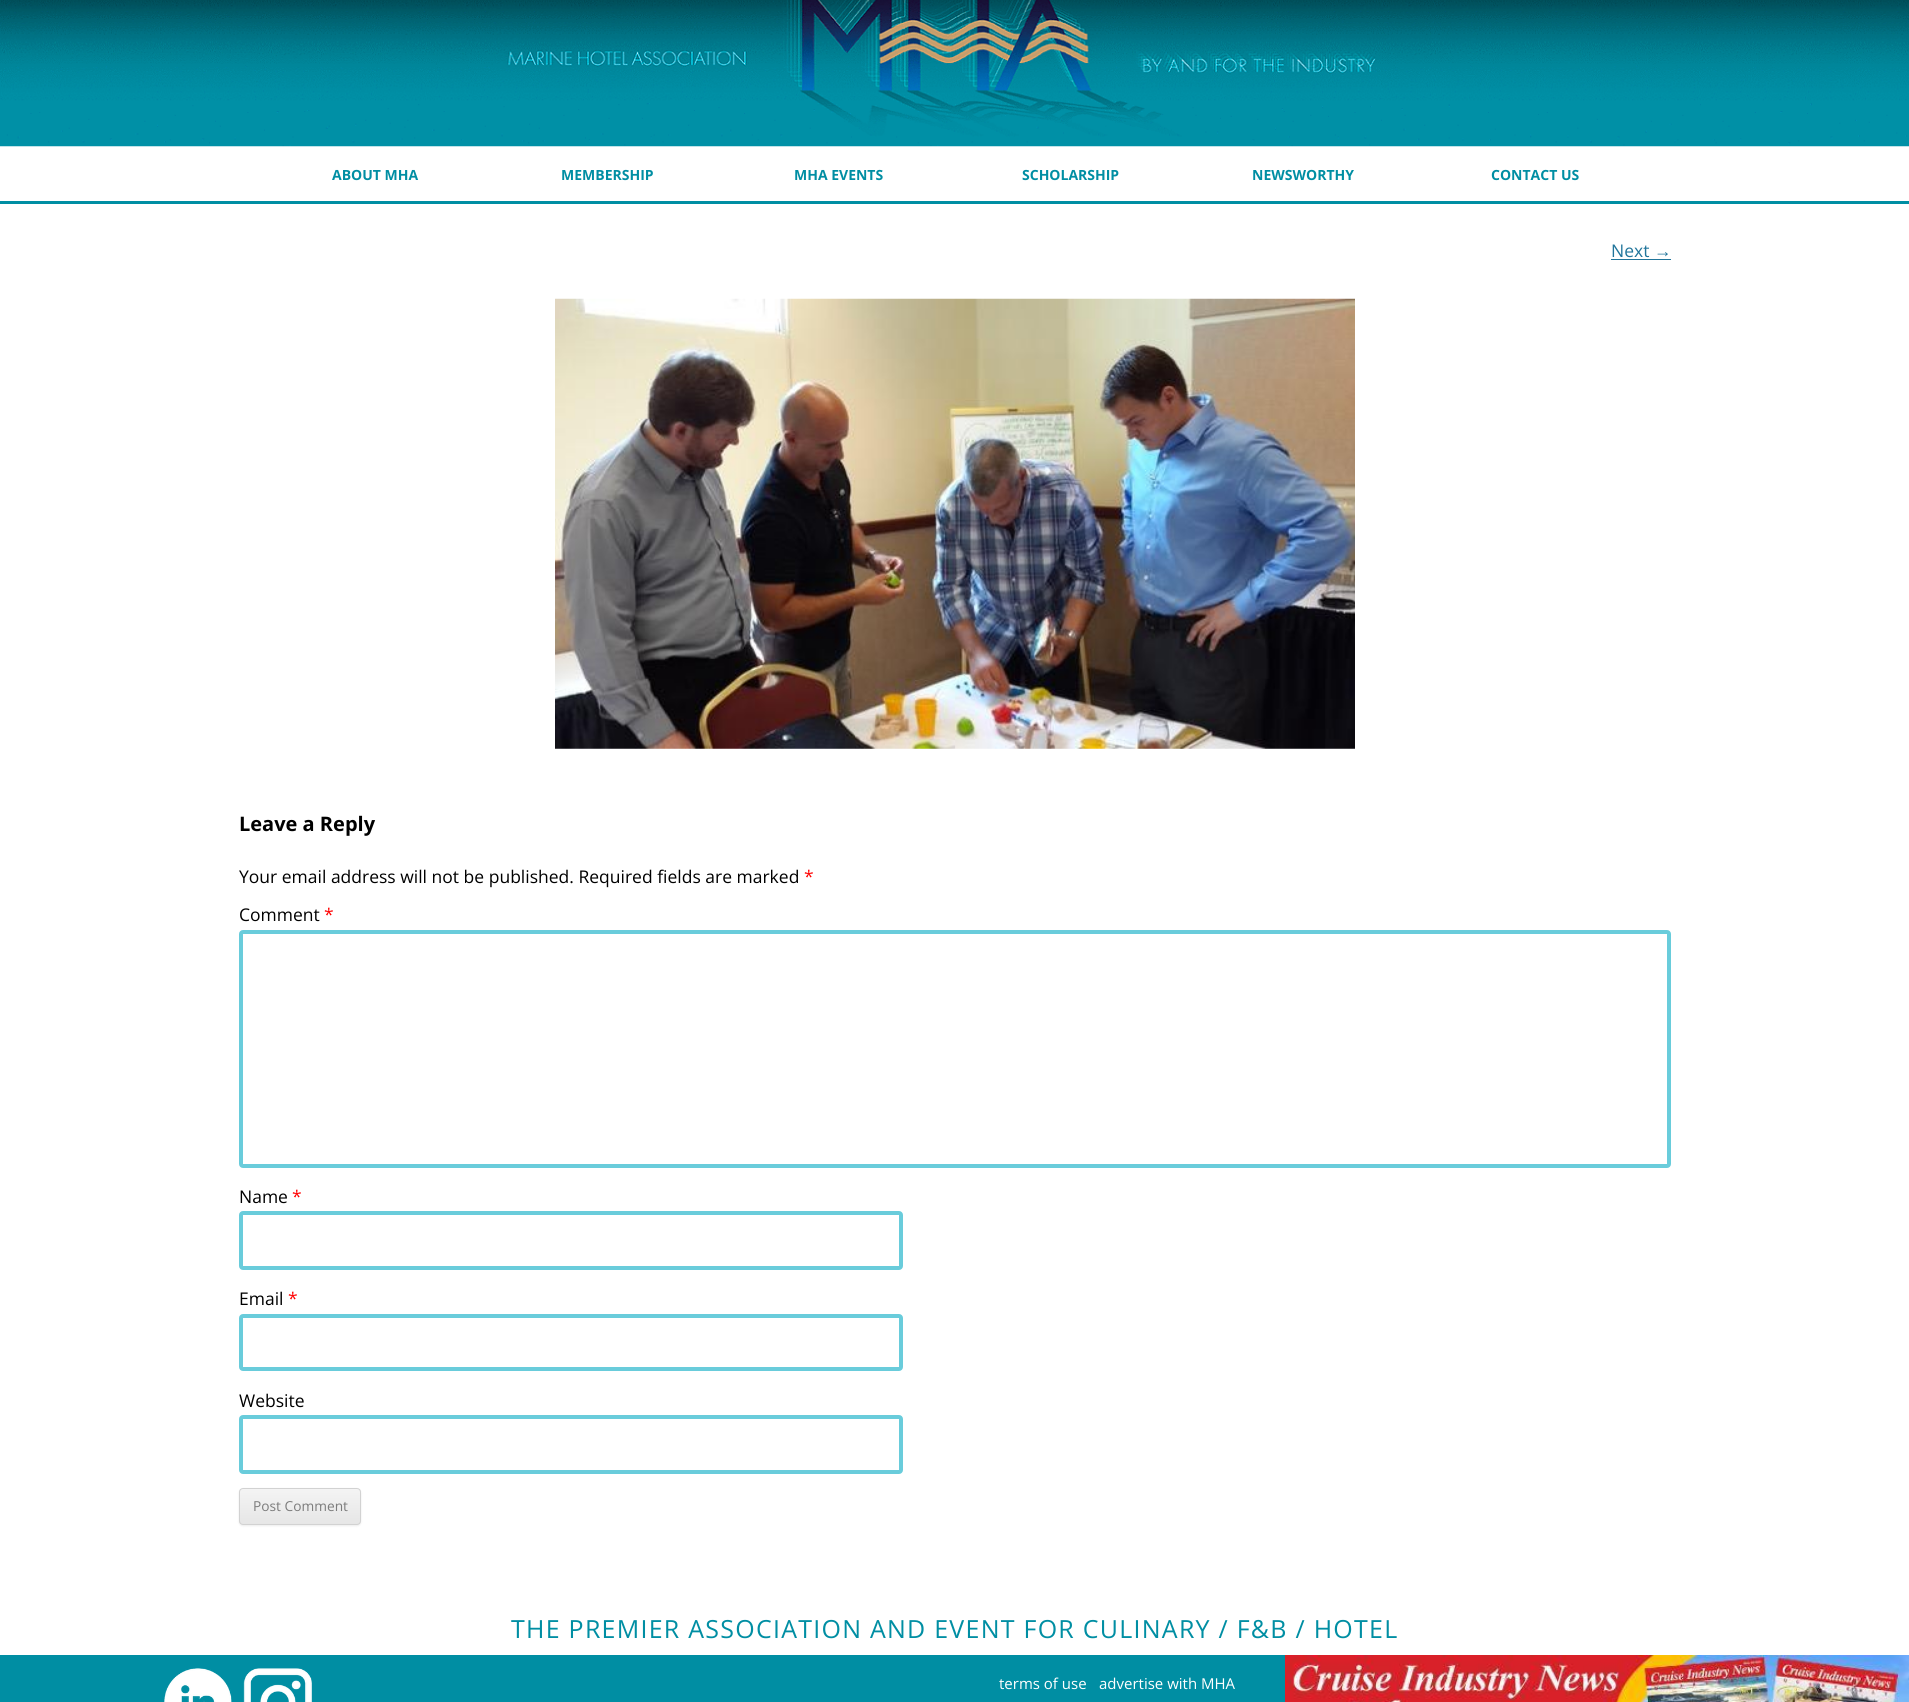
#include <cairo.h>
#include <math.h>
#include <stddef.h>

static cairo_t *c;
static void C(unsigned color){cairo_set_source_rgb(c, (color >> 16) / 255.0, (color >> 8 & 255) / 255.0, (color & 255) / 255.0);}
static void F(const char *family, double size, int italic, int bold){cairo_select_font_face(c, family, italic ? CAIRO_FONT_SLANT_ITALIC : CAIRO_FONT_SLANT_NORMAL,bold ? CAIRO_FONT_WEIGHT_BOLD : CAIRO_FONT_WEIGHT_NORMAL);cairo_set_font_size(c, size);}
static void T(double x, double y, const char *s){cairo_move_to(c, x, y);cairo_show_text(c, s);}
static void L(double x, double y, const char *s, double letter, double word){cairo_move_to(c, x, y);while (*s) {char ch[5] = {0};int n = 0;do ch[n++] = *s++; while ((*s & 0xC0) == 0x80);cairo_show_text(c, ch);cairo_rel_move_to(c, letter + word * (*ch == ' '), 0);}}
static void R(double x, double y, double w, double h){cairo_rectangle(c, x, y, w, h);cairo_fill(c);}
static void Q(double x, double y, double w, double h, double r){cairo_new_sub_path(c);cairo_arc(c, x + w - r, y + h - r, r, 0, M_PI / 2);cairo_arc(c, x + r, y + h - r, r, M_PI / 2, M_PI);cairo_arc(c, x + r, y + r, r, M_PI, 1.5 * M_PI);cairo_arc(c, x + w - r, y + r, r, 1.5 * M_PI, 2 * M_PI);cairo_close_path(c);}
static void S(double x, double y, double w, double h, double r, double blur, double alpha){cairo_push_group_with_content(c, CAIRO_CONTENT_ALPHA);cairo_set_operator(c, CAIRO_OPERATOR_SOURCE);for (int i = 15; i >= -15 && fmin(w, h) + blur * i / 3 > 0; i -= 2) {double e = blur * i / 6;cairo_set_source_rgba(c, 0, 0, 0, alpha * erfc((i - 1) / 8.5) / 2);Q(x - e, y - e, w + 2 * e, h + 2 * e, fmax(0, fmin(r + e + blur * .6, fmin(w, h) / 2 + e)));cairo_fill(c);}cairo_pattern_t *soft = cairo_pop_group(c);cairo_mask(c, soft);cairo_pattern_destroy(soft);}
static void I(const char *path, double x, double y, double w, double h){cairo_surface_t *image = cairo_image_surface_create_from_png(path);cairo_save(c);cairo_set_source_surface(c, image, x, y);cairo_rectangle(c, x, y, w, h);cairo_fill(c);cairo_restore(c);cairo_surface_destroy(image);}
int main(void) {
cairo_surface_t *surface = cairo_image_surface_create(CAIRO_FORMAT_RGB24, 1909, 1702);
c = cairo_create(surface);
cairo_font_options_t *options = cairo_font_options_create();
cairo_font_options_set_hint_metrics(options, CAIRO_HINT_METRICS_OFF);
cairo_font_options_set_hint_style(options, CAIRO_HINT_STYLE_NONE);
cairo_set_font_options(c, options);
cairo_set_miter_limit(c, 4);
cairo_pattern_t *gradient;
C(0xffffff);
cairo_paint(c);
I("1.png",0,0,1909,147);
C(0x008ea3);
R(0,201,1909,3);
F("Open Sans",14,0,1);
T(332,180,"ABOUT MHA");
T(561,180,"MEMBERSHIP");
T(794,180,"MHA EVENTS");
T(1022,180,"SCHOLARSHIP");
T(1252,180,"NEWSWORTHY");
T(1491,180,"CONTACT US");
F("Open Sans",17.5,0,0);
C(0x21759b);
T(1611,257,"Next");
F("Liberation Sans",17.5,0,0);
T(1654,257,"→");
R(1611,259,60,1);
I("2.png",555,298,800,451);
F("Open Sans",20,0,1);
C(0x000000);
T(239,831,"Leave a Reply");
F("Open Sans",17.5,0,0);
T(239,883,"Your email address will not be published. Required fields are marked");
C(0xff0000);
T(804,883,"*");
C(0x000000);
T(239,921,"Comment");
C(0xff0000);
T(324,921,"*");
Q(241,932,1428,234,2);
C(0x69ccdb);
cairo_set_line_width(c,4);
cairo_stroke(c);
C(0x000000);
T(239,1203,"Name");
C(0xff0000);
T(292,1203,"*");
Q(241,1213,660,55,2);
C(0x69ccdb);
cairo_stroke(c);
C(0x000000);
T(239,1305,"Email");
C(0xff0000);
T(288,1305,"*");
Q(241,1316,660,53,2);
C(0x69ccdb);
cairo_stroke(c);
C(0x000000);
T(239,1407,"Website");
Q(241,1417,660,55,2);
C(0x69ccdb);
cairo_stroke(c);
C(0x404040);
S(239,1489,122,37,4,1,.1);
cairo_save(c);
Q(239,1488,122,37,4);
cairo_clip(c);
gradient = cairo_pattern_create_linear(300,1489,300,1524);
cairo_pattern_add_color_stop_rgba(gradient,0,0.957,0.957,0.957,1);
cairo_pattern_add_color_stop_rgba(gradient,1,0.902,0.902,0.902,1);
cairo_set_source(c,gradient);
cairo_pattern_destroy(gradient);
R(239,1489,122,35);
cairo_restore(c);
Q(239.5,1488.5,121,36,3.5);
C(0xd2d2d2);
cairo_set_line_width(c,1);
cairo_stroke(c);
F("Open Sans",13.75,0,0);
C(0x7c7c7c);
T(253,1511,"Post Comment");
F("Open Sans",25,0,0);
C(0x008ea3);
L(511,1638,"THE PREMIER ASSOCIATION AND EVENT FOR CULINARY / F&B / HOTEL",1.25,0);
R(0,1655,1285,47);
I("3.png",164,1668,68,34);
I("4.png",243,1668,69,34);
F("Open Sans",15,0,0);
C(0xffffff);
T(999,1689,"terms of use");
T(1099,1689,"advertise with MHA");
I("5.png",1285,1655,624,47);
cairo_surface_write_to_png(surface, "o.png");
cairo_font_options_destroy(options);
cairo_destroy(c);
cairo_surface_destroy(surface);
return 0;
}
